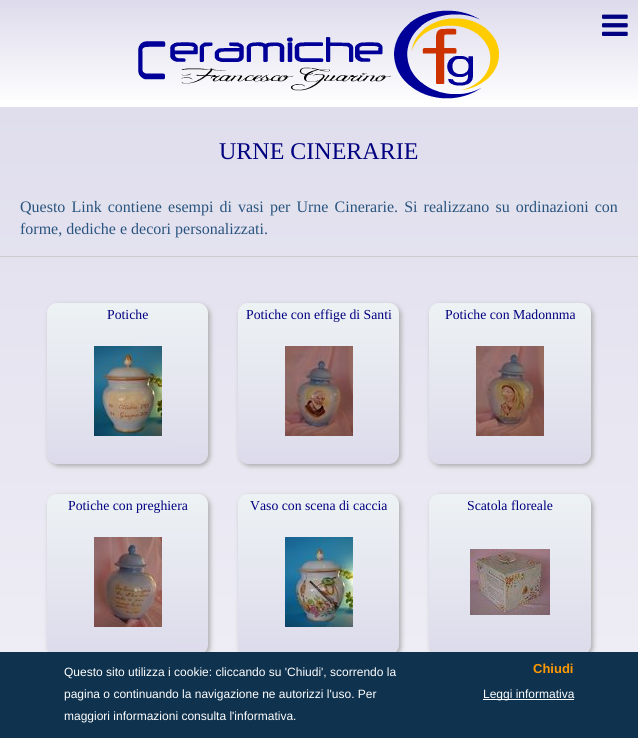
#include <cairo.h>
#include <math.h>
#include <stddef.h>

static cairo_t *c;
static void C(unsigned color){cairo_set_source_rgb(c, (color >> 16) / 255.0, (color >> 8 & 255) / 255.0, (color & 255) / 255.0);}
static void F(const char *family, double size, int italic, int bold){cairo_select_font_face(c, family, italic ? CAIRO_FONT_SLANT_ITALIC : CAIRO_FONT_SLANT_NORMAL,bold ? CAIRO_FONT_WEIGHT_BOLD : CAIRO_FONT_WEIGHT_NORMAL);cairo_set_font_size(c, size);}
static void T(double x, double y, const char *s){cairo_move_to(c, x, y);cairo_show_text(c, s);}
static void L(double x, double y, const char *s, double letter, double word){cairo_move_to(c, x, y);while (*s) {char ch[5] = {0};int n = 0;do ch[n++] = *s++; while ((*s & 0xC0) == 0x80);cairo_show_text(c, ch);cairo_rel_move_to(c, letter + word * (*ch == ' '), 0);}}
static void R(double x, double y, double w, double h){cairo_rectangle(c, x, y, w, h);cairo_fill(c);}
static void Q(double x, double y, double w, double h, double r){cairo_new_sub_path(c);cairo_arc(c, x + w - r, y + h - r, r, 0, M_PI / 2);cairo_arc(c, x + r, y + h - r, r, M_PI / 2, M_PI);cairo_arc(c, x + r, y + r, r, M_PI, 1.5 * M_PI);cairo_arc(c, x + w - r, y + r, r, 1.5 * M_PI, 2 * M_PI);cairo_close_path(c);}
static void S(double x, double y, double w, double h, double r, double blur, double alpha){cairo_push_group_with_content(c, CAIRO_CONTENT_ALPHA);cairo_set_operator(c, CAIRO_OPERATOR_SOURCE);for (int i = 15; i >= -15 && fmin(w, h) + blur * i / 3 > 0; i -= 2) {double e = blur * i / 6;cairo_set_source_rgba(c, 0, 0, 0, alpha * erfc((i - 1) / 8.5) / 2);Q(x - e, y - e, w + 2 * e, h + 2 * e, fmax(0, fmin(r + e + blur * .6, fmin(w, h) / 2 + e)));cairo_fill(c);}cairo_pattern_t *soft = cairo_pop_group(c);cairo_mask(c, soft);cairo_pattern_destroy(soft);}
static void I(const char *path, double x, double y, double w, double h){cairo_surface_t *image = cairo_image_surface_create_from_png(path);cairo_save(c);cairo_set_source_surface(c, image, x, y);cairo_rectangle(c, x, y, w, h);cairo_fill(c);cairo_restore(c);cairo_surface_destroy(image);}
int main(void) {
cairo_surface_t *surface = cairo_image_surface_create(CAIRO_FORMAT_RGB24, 638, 738);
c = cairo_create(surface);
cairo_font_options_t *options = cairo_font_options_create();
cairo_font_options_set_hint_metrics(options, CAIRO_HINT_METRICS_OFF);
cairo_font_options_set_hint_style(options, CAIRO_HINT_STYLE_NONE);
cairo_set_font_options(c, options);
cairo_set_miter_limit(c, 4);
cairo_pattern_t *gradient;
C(0xffffff);
cairo_paint(c);
gradient = cairo_pattern_create_linear(319,0,319,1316);
cairo_pattern_add_color_stop_rgba(gradient,0,0.867,0.859,0.922,1);
cairo_pattern_add_color_stop_rgba(gradient,1,1,1,1,1);
cairo_set_source(c,gradient);
cairo_pattern_destroy(gradient);
R(0,107,638,545);
gradient = cairo_pattern_create_linear(319,0,319,107);
cairo_pattern_add_color_stop_rgba(gradient,0,0.867,0.859,0.922,1);
cairo_pattern_add_color_stop_rgba(gradient,1,1,1,1,1);
cairo_set_source(c,gradient);
cairo_pattern_destroy(gradient);
R(0,0,638,100);
I("1.png",138,10,361,89);
I("2.png",602,14,26,22);
F("Liberation Serif",24,0,0);
C(0x000080);
T(219,159,"URNE CINERARIE");
F("Liberation Serif",16,0,0);
C(0x29547e);
L(20,212,"Questo Link contiene esempi di vasi per Urne Cinerarie. Si realizzano su ordinazioni con",0,2.1);
T(20,234,"forme, dediche e decori personalizzati.");
C(0xcccccc);
R(0,256,638,1);
C(0xaaaaaa);
S(49,305,161,161,10,2.5,1);
gradient = cairo_pattern_create_linear(127,303,128,464);
cairo_pattern_add_color_stop_rgba(gradient,0,0.929,0.949,0.957,1);
cairo_pattern_add_color_stop_rgba(gradient,1,0.867,0.859,0.922,1);
cairo_set_source(c,gradient);
cairo_pattern_destroy(gradient);
Q(47,303,161,161,10);
cairo_fill(c);
F("Liberation Serif",13.75,0,0);
C(0x000080);
T(107,319,"Potiche");
I("3.png",94,346,68,90);
C(0xaaaaaa);
S(240,305,161,161,10,2.5,1);
gradient = cairo_pattern_create_linear(319,303,319,464);
cairo_pattern_add_color_stop_rgba(gradient,0,0.929,0.949,0.957,1);
cairo_pattern_add_color_stop_rgba(gradient,1,0.867,0.859,0.922,1);
cairo_set_source(c,gradient);
cairo_pattern_destroy(gradient);
Q(238,303,161,161,10);
cairo_fill(c);
C(0x000080);
T(246,319,"Potiche con effige di Santi");
I("4.png",285,346,68,90);
C(0xaaaaaa);
S(431,305,162,161,10,2.5,1);
gradient = cairo_pattern_create_linear(510,303,510,464);
cairo_pattern_add_color_stop_rgba(gradient,0,0.929,0.949,0.957,1);
cairo_pattern_add_color_stop_rgba(gradient,1,0.867,0.859,0.922,1);
cairo_set_source(c,gradient);
cairo_pattern_destroy(gradient);
Q(429,303,162,161,10);
cairo_fill(c);
C(0x000080);
T(445,319,"Potiche con Madonnma");
I("5.png",476,346,68,90);
C(0xaaaaaa);
S(49,496,161,161,10,2.5,1);
gradient = cairo_pattern_create_linear(127,494,128,655);
cairo_pattern_add_color_stop_rgba(gradient,0,0.929,0.949,0.957,1);
cairo_pattern_add_color_stop_rgba(gradient,1,0.867,0.859,0.922,1);
cairo_set_source(c,gradient);
cairo_pattern_destroy(gradient);
Q(47,494,161,161,10);
cairo_fill(c);
C(0x000080);
T(68,510,"Potiche con preghiera");
I("6.png",94,537,68,90);
C(0xaaaaaa);
S(240,496,161,161,10,2.5,1);
gradient = cairo_pattern_create_linear(319,494,319,655);
cairo_pattern_add_color_stop_rgba(gradient,0,0.929,0.949,0.957,1);
cairo_pattern_add_color_stop_rgba(gradient,1,0.867,0.859,0.922,1);
cairo_set_source(c,gradient);
cairo_pattern_destroy(gradient);
Q(238,494,161,161,10);
cairo_fill(c);
C(0x000080);
T(250,510,"Vaso con scena di caccia");
I("7.png",285,537,68,90);
C(0xaaaaaa);
S(431,496,162,161,10,2.5,1);
gradient = cairo_pattern_create_linear(510,494,510,655);
cairo_pattern_add_color_stop_rgba(gradient,0,0.929,0.949,0.957,1);
cairo_pattern_add_color_stop_rgba(gradient,1,0.867,0.859,0.922,1);
cairo_set_source(c,gradient);
cairo_pattern_destroy(gradient);
Q(429,494,162,161,10);
cairo_fill(c);
C(0x000080);
T(467,510,"Scatola floreale");
I("8.png",470,549,80,66);
C(0x0f324e);
R(0,652,638,86);
F("Liberation Sans",12,0,0);
C(0xffffff);
T(64,676,"Questo sito utilizza i cookie: cliccando su 'Chiudi', scorrendo la");
T(64,698,"pagina o continuando la navigazione ne autorizzi l'uso. Per");
T(64,720,"maggiori informazioni consulta l'informativa.");
F("Liberation Sans",13,0,1);
C(0xff9900);
T(533,673,"Chiudi");
C(0xffffff);
R(483,699,91,1);
F("Liberation Sans",12,0,0);
T(483,698,"Leggi informativa");
cairo_surface_write_to_png(surface, "o.png");
cairo_font_options_destroy(options);
cairo_destroy(c);
cairo_surface_destroy(surface);
return 0;
}
